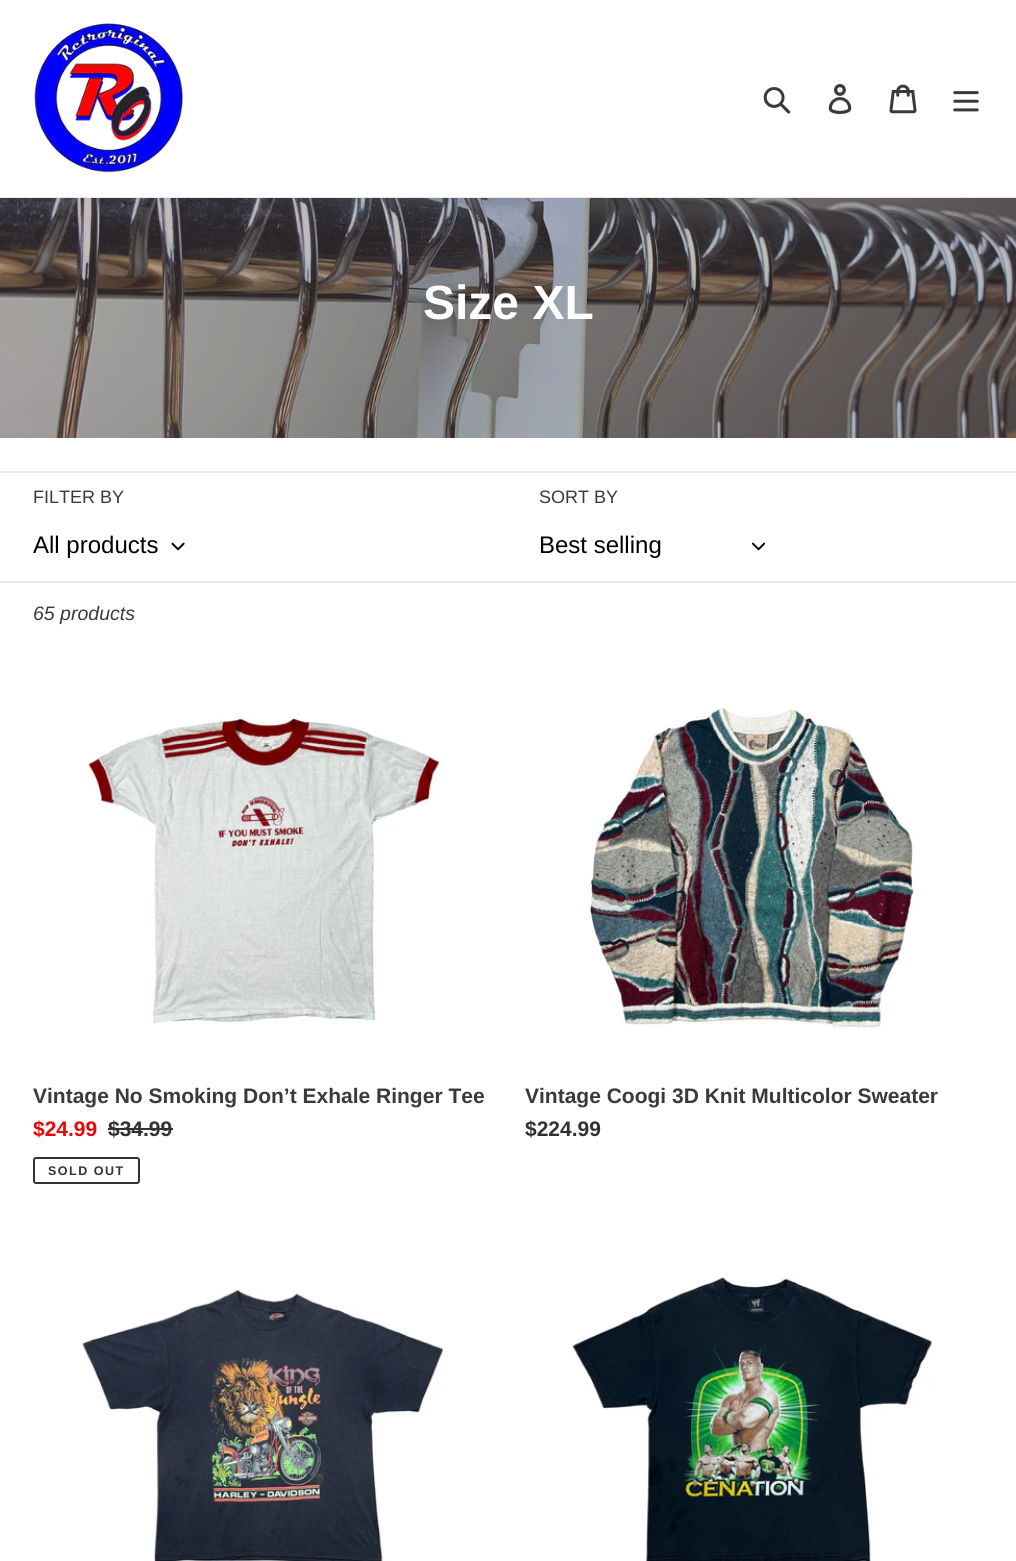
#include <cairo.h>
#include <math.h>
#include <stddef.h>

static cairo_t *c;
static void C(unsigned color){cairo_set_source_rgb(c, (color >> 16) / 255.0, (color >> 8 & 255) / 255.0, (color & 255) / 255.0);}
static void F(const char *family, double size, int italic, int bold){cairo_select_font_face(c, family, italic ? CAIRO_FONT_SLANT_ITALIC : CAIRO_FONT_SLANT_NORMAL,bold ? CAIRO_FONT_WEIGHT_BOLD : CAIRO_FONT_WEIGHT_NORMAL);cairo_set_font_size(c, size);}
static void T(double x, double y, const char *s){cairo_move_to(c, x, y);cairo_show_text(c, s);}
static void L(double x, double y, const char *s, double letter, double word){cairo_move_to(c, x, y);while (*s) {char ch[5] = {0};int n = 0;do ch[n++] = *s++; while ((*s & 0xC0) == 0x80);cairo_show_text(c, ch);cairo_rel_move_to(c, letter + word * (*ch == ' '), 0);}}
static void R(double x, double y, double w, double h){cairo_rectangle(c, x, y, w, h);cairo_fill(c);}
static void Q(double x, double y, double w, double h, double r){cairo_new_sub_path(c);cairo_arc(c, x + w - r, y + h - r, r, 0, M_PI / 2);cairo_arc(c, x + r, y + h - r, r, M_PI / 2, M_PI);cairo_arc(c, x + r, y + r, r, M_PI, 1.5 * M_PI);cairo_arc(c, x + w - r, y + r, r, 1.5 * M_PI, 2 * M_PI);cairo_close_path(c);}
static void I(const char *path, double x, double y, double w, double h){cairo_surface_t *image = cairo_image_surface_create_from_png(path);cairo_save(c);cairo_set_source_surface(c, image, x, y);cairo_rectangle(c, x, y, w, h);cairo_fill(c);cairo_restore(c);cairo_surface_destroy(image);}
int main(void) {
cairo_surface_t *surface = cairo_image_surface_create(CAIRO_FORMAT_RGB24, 1016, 1561);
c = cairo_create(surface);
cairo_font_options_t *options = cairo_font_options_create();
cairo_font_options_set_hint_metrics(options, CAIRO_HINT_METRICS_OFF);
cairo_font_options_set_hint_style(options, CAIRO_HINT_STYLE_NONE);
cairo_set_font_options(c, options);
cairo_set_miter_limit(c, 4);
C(0xffffff);
cairo_paint(c);
C(0xebebeb);
R(0,197,1016,1);
I("1.png",33,23,150,150);
I("2.png",763,87,28,27);
I("3.png",828,84,24,30);
I("4.png",889,84,28,30);
I("5.png",953,91,26,21);
I("6.png",0,198,1016,240);
F("Liberation Sans",48,0,1);
C(0xffffff);
T(423,319,"Size XL");
C(0xebebeb);
R(0,471,1016,2);
F("Liberation Sans",18,0,0);
C(0x3a3a3a);
T(33,503,"FILTER BY");
F("Liberation Sans",24,0,0);
C(0x000000);
T(33,553,"All products");
I("7.png",171,542,14,9);
F("Liberation Sans",18,0,0);
C(0x3a3a3a);
T(539,503,"SORT BY");
F("Liberation Sans",24,0,0);
C(0x000000);
T(539,553,"Best selling");
I("8.png",752,542,13,9);
C(0xebebeb);
R(0,581,1016,2);
F("Liberation Sans",19.5,1,0);
C(0x3a3a3a);
T(33,620,"65 products");
I("9.png",86,716,356,308);
F("Liberation Sans",21,0,1);
T(33,1103,"Vintage No Smoking Don’t Exhale Ringer Tee");
C(0xea0606);
T(33,1136,"$24.99");
C(0x333232);
T(108,1136,"$34.99");
R(108,1128,65,2);
Q(34,1158,105,25,2);
cairo_stroke(c);
F("Liberation Sans",12.5,0,1);
L(48,1175,"SOLD OUT",1.5,0);
I("10.png",586,707,331,321);
F("Liberation Sans",21,0,1);
C(0x3a3a3a);
T(525,1103,"Vintage Coogi 3D Knit Multicolor Sweater");
C(0x333232);
T(525,1136,"$224.99");
I("11.png",82,1290,363,271);
I("12.png",572,1277,362,284);
cairo_surface_write_to_png(surface, "o.png");
cairo_font_options_destroy(options);
cairo_destroy(c);
cairo_surface_destroy(surface);
return 0;
}
